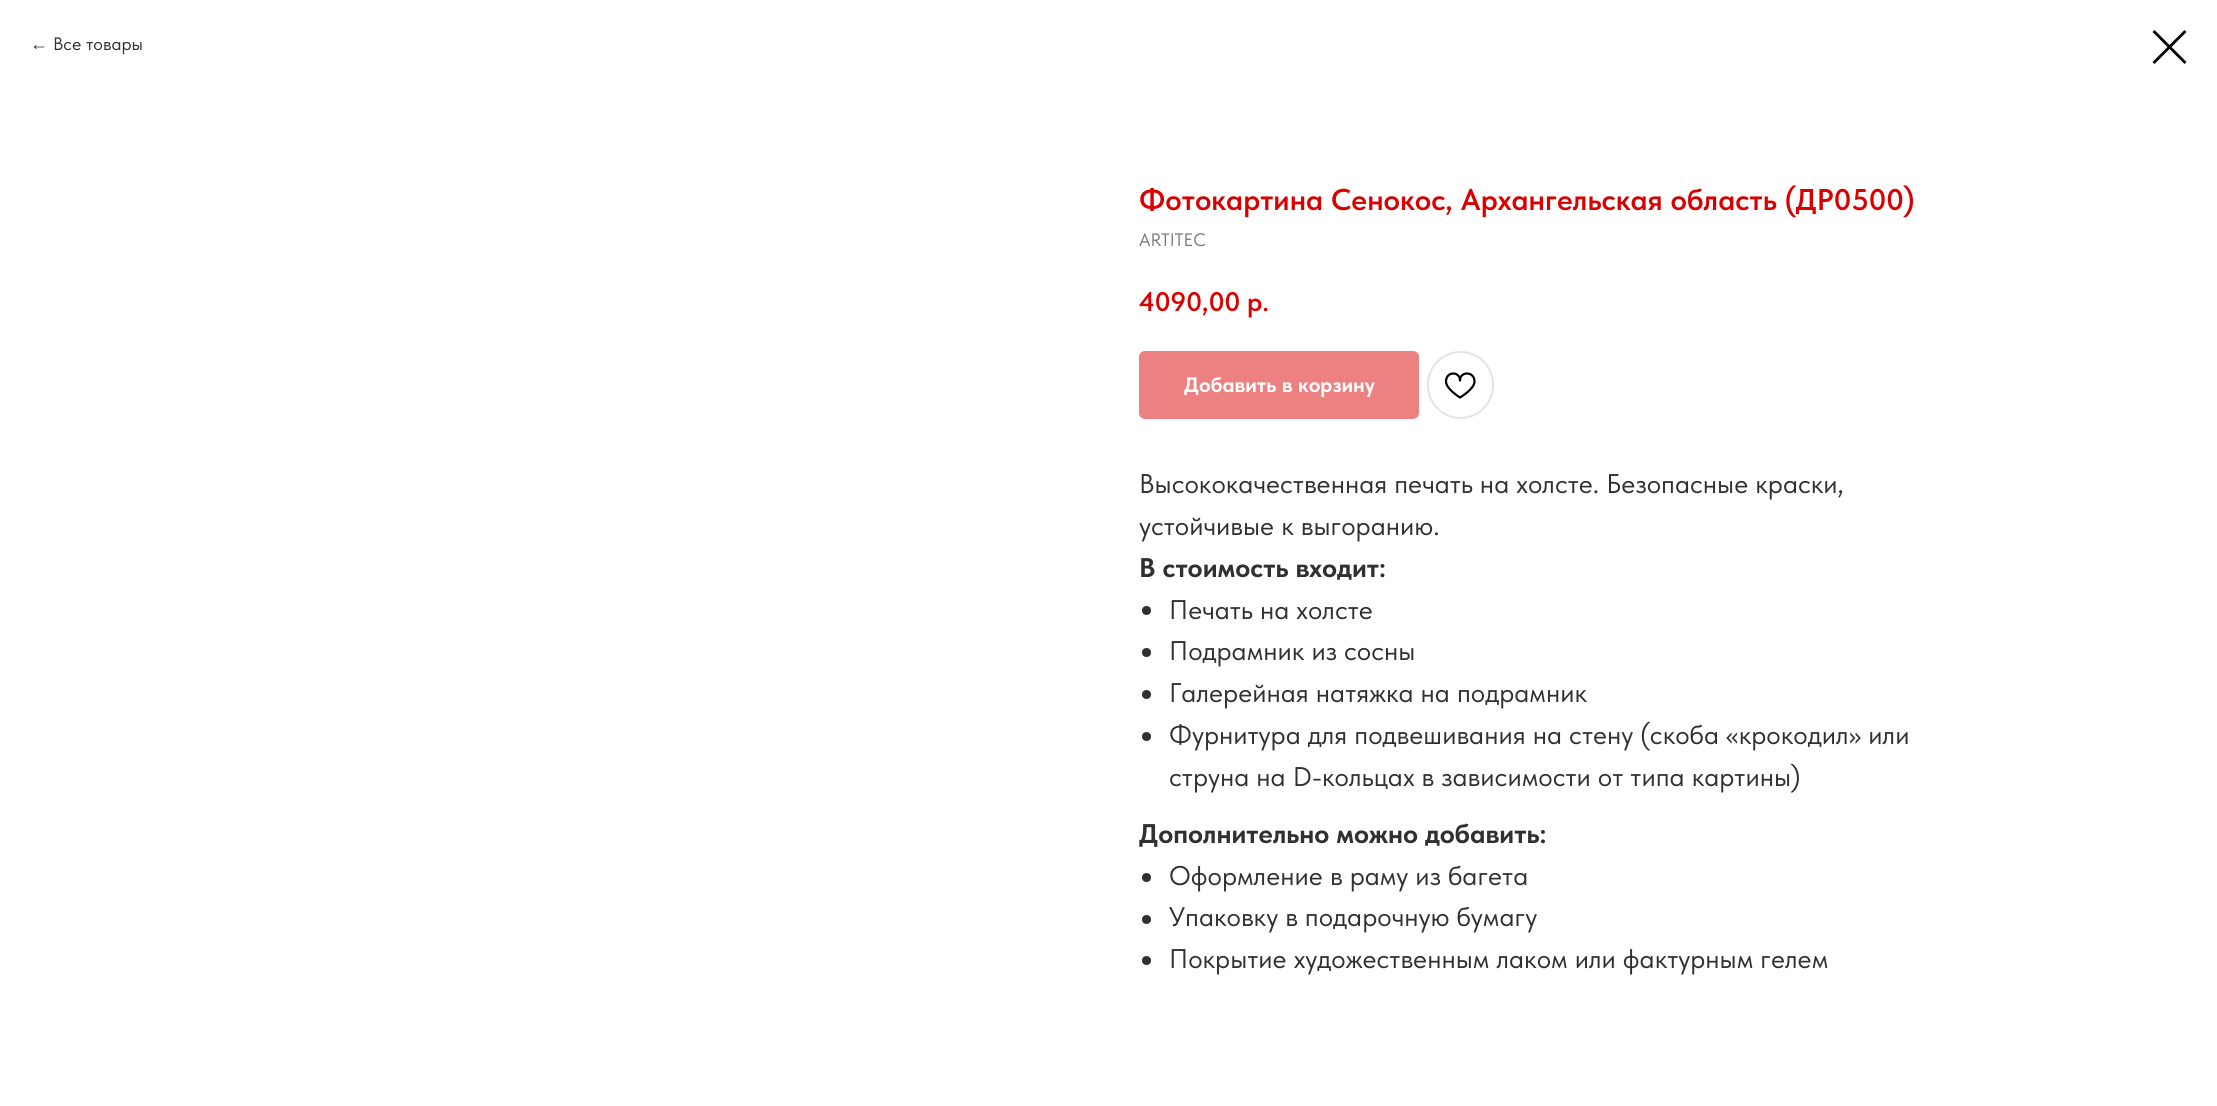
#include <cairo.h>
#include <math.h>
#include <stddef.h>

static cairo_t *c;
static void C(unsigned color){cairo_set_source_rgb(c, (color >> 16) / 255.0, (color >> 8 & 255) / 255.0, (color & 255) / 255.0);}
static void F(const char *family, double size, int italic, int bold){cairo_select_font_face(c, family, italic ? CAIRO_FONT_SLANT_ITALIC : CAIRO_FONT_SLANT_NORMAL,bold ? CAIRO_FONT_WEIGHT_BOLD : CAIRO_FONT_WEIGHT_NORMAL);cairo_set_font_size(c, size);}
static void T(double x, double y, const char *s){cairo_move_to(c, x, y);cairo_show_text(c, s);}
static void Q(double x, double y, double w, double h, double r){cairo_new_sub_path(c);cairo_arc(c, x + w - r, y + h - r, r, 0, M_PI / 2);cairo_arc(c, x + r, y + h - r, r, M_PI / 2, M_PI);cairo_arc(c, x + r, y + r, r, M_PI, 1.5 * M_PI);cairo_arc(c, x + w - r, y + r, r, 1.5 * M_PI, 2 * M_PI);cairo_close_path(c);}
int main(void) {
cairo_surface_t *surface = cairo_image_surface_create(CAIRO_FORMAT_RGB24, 2217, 1106);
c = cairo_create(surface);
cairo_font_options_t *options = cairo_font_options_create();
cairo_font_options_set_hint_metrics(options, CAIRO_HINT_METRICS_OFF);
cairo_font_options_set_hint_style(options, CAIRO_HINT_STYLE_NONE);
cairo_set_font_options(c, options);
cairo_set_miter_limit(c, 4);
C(0xffffff);
cairo_paint(c);
F("Liberation Sans",18,0,0);
C(0x303030);
T(30,50,"←");
F("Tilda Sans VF",18,0,0);
T(53,50,"Все товары");
C(0x000000);
cairo_set_fill_rule(c,CAIRO_FILL_RULE_EVEN_ODD);
cairo_new_path(c);
cairo_move_to(c,2152.5,32);
cairo_line_to(c,2154.5,30);
cairo_line_to(c,2186.5,62);
cairo_line_to(c,2184.5,64);
cairo_close_path(c);
cairo_fill(c);
cairo_new_path(c);
cairo_move_to(c,2184.5,30);
cairo_line_to(c,2186.5,32);
cairo_line_to(c,2154.5,64);
cairo_line_to(c,2152.5,62);
cairo_close_path(c);
cairo_fill(c);
F("Tilda Sans VF SemiBold",30,0,0);
C(0xdb0000);
T(1139,210,"Фотокартина Сенокос, Архангельская область (ДР0500)");
F("Tilda Sans VF",18,0,0);
C(0x777777);
T(1139,246,"ARTITEC");
F("Tilda Sans VF SemiBold",27,0,0);
C(0xdb0000);
T(1139,311,"4090,00");
T(1247,311,"р.");
C(0xed8080);
Q(1139,351,280,68,6);
cairo_fill(c);
F("Tilda Sans VF",21,0,1);
C(0xffffff);
T(1184,392,"Добавить в корзину");
Q(1428,352,65,66,32.5);
C(0xe4e4e4);
cairo_stroke(c);
cairo_new_path(c);
cairo_move_to(c,1474.5,381.5);
cairo_curve_to(c,1474.5,389,1460,397.5,1460,397.5);
cairo_curve_to(c,1460,397.5,1446,389,1446,381.5);
cairo_curve_to(c,1446,371,1460,371,1460,380.5);
cairo_curve_to(c,1460,371,1474.5,371,1474.5,381.5);
cairo_close_path(c);
C(0x000000);
cairo_set_line_width(c,2.2);
cairo_set_line_join(c,CAIRO_LINE_JOIN_ROUND);
cairo_stroke(c);
F("Tilda Sans VF",27,0,0);
C(0x303030);
T(1139,493,"Высококачественная печать на холсте. Безопасные краски,");
T(1139,535,"устойчивые к выгоранию.");
F("Tilda Sans VF",27,0,1);
T(1139,577,"В стоимость входит:");
cairo_new_path(c);
cairo_arc(c,1146.5,610.5,4.5,0,2 * M_PI);
cairo_fill(c);
F("Tilda Sans VF",27,0,0);
T(1169,619,"Печать на холсте");
cairo_new_path(c);
cairo_arc(c,1146.5,652.5,4.5,0,2 * M_PI);
cairo_fill(c);
T(1169,660,"Подрамник из сосны");
cairo_new_path(c);
cairo_arc(c,1146.5,694.5,4.5,0,2 * M_PI);
cairo_fill(c);
T(1169,702,"Галерейная натяжка на подрамник");
cairo_new_path(c);
cairo_arc(c,1146.5,736.5,4.5,0,2 * M_PI);
cairo_fill(c);
T(1169,744,"Фурнитура для подвешивания на стену (скоба «крокодил» или");
T(1169,786,"струна на D-кольцах в зависимости от типа картины)");
F("Tilda Sans VF",27,0,1);
T(1139,843,"Дополнительно можно добавить:");
cairo_new_path(c);
cairo_arc(c,1146.5,877.5,4.5,0,2 * M_PI);
cairo_fill(c);
F("Tilda Sans VF",27,0,0);
T(1169,885,"Оформление в раму из багета");
cairo_new_path(c);
cairo_arc(c,1146.5,919.5,4.5,0,2 * M_PI);
cairo_fill(c);
T(1169,926,"Упаковку в подарочную бумагу");
cairo_new_path(c);
cairo_arc(c,1146.5,960.5,4.5,0,2 * M_PI);
cairo_fill(c);
T(1169,968,"Покрытие художественным лаком или фактурным гелем");
cairo_surface_write_to_png(surface, "o.png");
cairo_font_options_destroy(options);
cairo_destroy(c);
cairo_surface_destroy(surface);
return 0;
}
